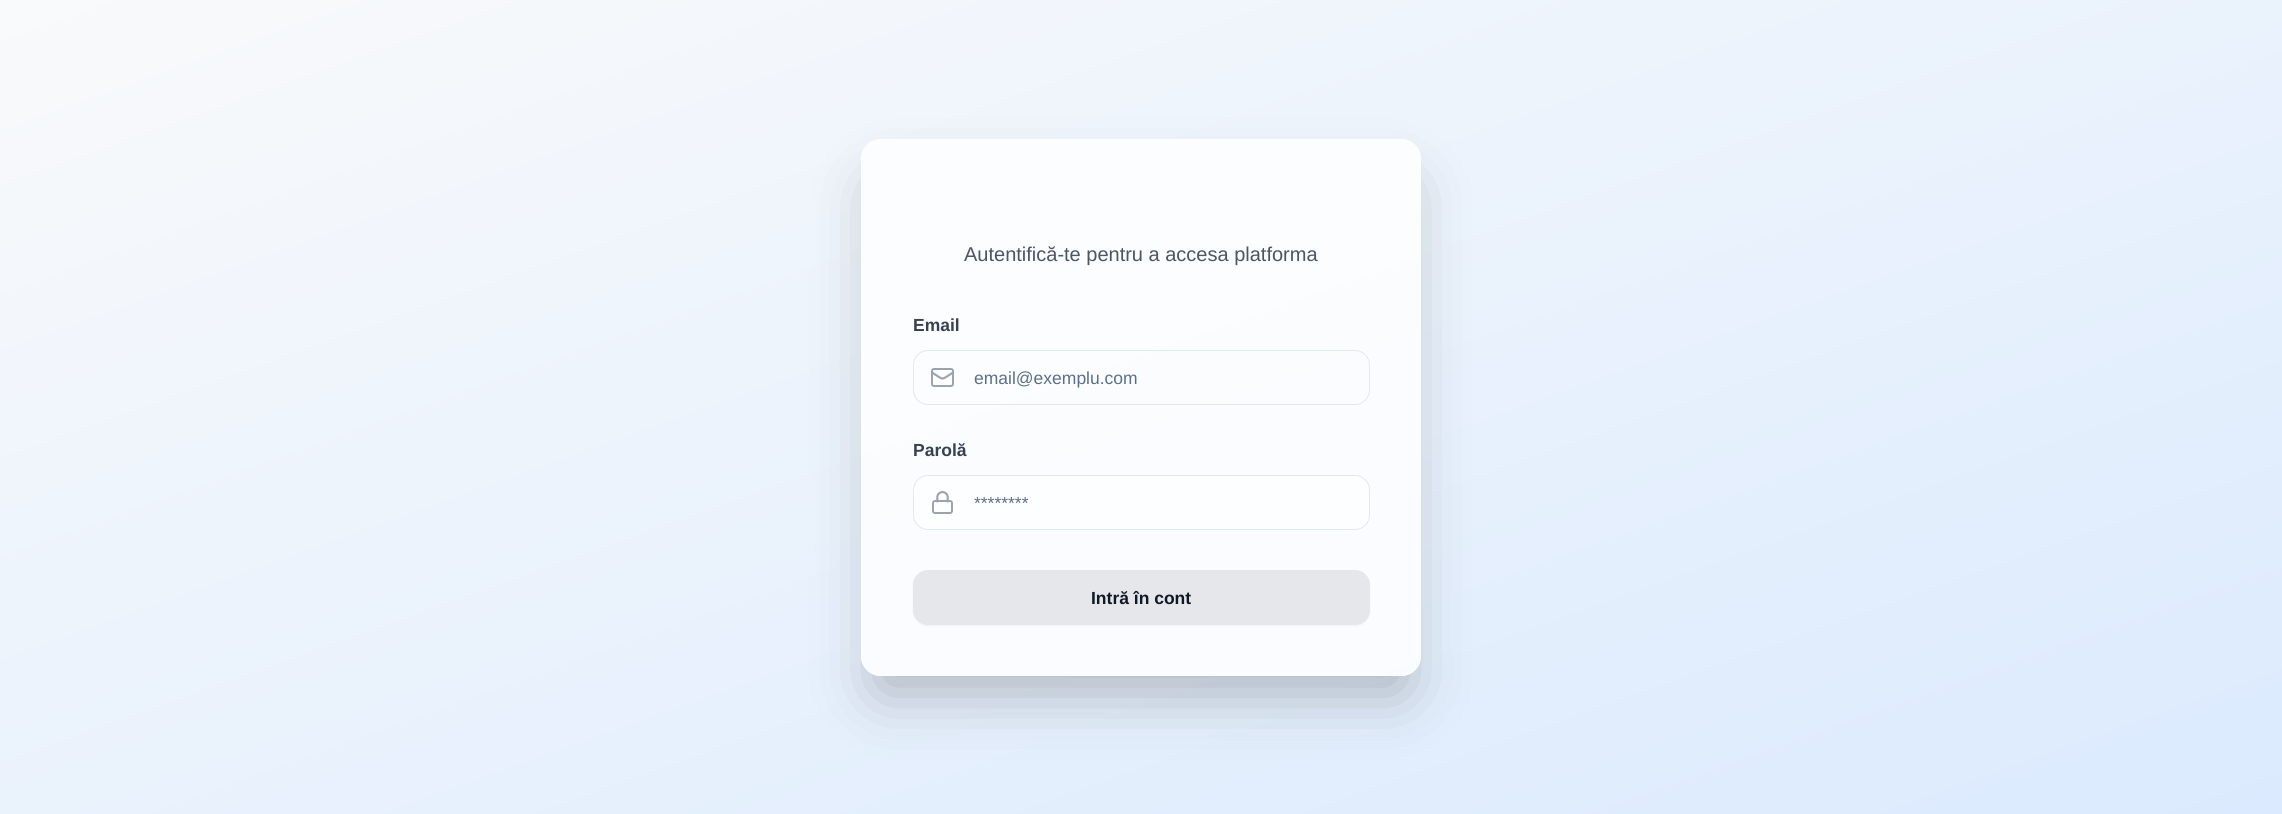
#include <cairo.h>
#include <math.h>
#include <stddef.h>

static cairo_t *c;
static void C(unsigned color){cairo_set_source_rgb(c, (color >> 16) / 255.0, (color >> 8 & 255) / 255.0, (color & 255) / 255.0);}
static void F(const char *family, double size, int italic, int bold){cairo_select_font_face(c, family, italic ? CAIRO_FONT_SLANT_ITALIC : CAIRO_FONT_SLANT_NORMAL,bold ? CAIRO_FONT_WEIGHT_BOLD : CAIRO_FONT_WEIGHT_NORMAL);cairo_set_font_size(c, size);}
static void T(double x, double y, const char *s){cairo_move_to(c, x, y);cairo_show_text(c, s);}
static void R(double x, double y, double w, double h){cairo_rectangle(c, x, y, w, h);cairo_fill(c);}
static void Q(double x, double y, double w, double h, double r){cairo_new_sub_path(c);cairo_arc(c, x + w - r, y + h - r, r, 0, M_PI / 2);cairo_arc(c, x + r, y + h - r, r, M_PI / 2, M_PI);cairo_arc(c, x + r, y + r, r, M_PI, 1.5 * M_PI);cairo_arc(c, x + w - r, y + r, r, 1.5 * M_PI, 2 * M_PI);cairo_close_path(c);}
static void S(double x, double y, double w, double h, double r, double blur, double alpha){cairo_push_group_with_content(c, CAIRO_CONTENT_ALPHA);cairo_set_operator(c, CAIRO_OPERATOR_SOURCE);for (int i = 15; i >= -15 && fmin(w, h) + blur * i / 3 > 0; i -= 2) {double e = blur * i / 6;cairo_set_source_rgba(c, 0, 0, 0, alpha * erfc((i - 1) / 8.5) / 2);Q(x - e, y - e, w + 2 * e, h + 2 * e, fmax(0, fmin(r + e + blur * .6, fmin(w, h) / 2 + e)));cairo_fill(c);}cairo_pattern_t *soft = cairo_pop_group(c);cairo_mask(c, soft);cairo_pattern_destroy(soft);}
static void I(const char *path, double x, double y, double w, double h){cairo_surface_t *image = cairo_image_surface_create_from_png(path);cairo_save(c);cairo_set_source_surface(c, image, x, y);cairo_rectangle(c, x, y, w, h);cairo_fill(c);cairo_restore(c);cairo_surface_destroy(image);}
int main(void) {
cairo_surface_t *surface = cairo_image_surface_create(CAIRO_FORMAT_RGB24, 2282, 814);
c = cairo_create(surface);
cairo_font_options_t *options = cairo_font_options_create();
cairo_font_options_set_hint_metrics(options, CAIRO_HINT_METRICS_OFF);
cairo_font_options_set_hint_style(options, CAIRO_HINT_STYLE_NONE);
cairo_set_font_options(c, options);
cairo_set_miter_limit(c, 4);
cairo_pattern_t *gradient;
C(0xffffff);
cairo_paint(c);
gradient = cairo_pattern_create_linear(883,-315,1399,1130);
cairo_pattern_add_color_stop_rgba(gradient,0,0.976,0.98,0.984,1);
cairo_pattern_add_color_stop_rgba(gradient,1,0.859,0.918,0.996,1);
cairo_set_source(c,gradient);
cairo_pattern_destroy(gradient);
R(0,0,2282,814);
cairo_save(c);
cairo_set_fill_rule(c,CAIRO_FILL_RULE_EVEN_ODD);
cairo_new_path(c);
cairo_move_to(c,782,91);
cairo_line_to(c,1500,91);
cairo_line_to(c,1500,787);
cairo_line_to(c,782,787);
cairo_close_path(c);
cairo_move_to(c,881,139);
cairo_line_to(c,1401,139);
cairo_curve_to(c,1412,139,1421,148,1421,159);
cairo_line_to(c,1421,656);
cairo_curve_to(c,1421,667,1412,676,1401,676);
cairo_line_to(c,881,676);
cairo_curve_to(c,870,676,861,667,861,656);
cairo_line_to(c,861,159);
cairo_curve_to(c,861,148,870,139,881,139);
cairo_close_path(c);
cairo_clip(c);
C(0x000000);
S(876,185,530,508,5,31,.25);
cairo_restore(c);
cairo_set_source_rgba(c,1,1,1,0.8);
Q(861,139,560,537,20);
cairo_fill(c);
Q(861.5,139.5,559,536,19.5);
cairo_set_source_rgba(c,1,1,1,0.5);
cairo_set_line_width(c,1);
cairo_stroke(c);
F("Liberation Sans",20,0,0);
C(0x4b5563);
T(964,261,"Autentifică-te pentru a accesa platforma");
F("Liberation Sans",17.5,0,1);
C(0x374151);
T(913,331,"Email");
Q(913.5,350.5,456,54,14.5);
C(0xe2e8f0);
cairo_stroke(c);
Q(932,369,21,17,2);
C(0x9ca3af);
cairo_set_line_width(c,2);
cairo_stroke(c);
cairo_new_path(c);
cairo_move_to(c,953,372.5);
cairo_curve_to(c,940,380.5,945,380.5,932,372.5);
cairo_set_line_width(c,2.1);
cairo_set_line_cap(c,CAIRO_LINE_CAP_ROUND);
cairo_set_line_join(c,CAIRO_LINE_JOIN_ROUND);
cairo_stroke(c);
F("Liberation Sans",17.5,0,0);
C(0x5c6f8a);
T(974,384,"email@exemplu.com");
F("Liberation Sans",17.5,0,1);
C(0x374151);
T(913,456,"Parolă");
C(0xfdfeff);
Q(913.5,475.5,456,54,14.5);
cairo_fill_preserve(c);
C(0xe2e8f0);
cairo_set_line_width(c,1);
cairo_set_line_cap(c,CAIRO_LINE_CAP_BUTT);
cairo_set_line_join(c,CAIRO_LINE_JOIN_MITER);
cairo_stroke(c);
I("1.png",932,491,21,23);
F("Liberation Sans",17.5,0,0);
C(0x5c6f8a);
T(974,509,"********");
C(0x000000);
S(913,571,457,55,15,1,.05);
C(0xe5e7eb);
Q(913,570,457,55,15);
cairo_fill(c);
F("Liberation Sans",17.5,0,1);
C(0x111827);
T(1091,604,"Intră în cont");
cairo_surface_write_to_png(surface, "o.png");
cairo_font_options_destroy(options);
cairo_destroy(c);
cairo_surface_destroy(surface);
return 0;
}
